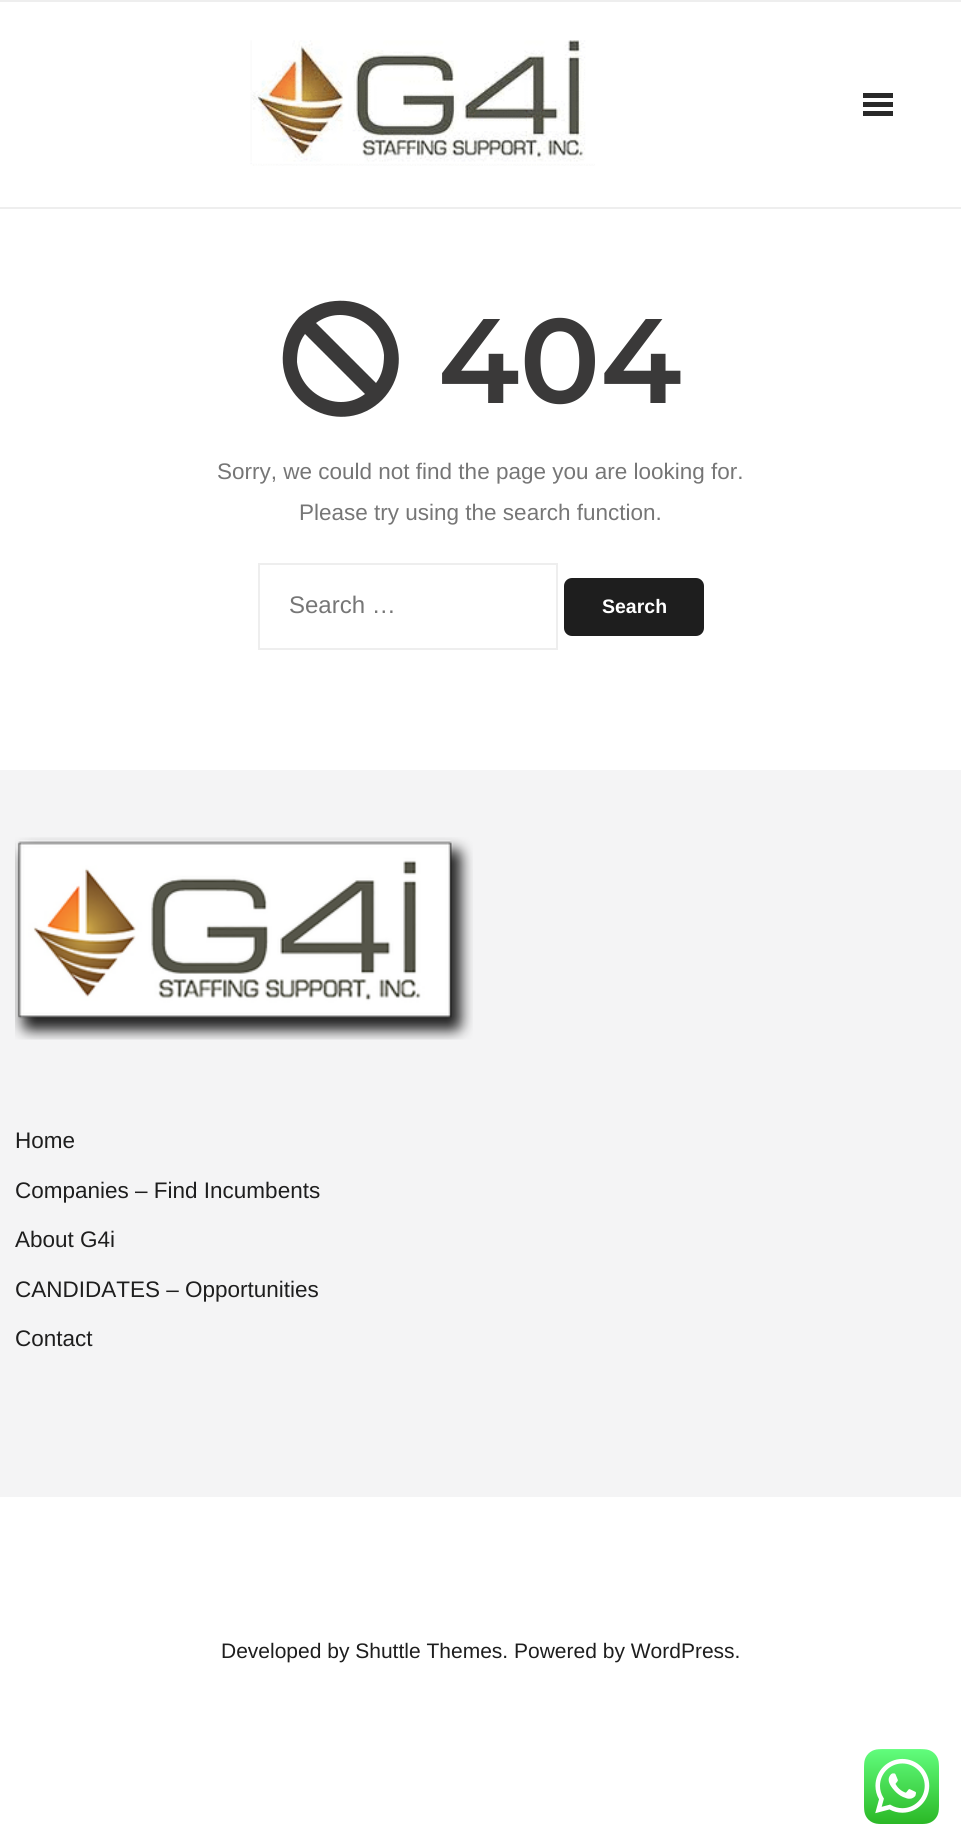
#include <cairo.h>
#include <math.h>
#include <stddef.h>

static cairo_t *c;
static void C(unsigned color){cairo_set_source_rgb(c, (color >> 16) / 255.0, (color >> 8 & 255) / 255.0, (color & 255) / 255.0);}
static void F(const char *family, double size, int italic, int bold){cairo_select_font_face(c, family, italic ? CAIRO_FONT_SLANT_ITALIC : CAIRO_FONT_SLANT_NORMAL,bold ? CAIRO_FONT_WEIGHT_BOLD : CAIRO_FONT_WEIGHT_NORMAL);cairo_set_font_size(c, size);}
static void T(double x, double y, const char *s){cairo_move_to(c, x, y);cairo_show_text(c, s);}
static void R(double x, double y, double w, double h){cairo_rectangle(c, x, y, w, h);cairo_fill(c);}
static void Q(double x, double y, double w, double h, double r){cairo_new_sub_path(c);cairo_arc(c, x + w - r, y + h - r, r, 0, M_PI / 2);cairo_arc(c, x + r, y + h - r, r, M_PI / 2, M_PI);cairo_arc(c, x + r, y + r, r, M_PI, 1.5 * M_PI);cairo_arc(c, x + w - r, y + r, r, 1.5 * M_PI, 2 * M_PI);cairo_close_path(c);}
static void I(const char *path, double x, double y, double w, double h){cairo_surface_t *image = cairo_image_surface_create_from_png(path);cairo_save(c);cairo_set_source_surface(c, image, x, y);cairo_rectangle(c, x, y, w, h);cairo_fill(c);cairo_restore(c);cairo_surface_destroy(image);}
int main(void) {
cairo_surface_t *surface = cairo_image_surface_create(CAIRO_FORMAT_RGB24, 961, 1846);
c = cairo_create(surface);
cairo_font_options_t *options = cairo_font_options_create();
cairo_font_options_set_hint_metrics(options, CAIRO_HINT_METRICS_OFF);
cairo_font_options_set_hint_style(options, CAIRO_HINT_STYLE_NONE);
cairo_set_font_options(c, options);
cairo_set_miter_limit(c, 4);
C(0xffffff);
cairo_paint(c);
C(0xeeeeee);
R(0,0,961,2);
R(0,207,961,2);
I("1.png",250,40,345,126);
C(0x292929);
R(863,93,30,5);
R(863,102,30,5);
R(863,111,30,5);
C(0x3a3939);
cairo_new_path(c);
cairo_move_to(c,299,317);
cairo_curve_to(c,309,308,321,302,335,301);
cairo_curve_to(c,389,296,420,361,382,400);
cairo_curve_to(c,343,438,278,407,283,353);
cairo_curve_to(c,284,339,290,327,299,317);
cairo_close_path(c);
cairo_move_to(c,384,355);
cairo_curve_to(c,381,323,343,303,316,323);
cairo_line_to(c,376,383);
cairo_curve_to(c,382,375,384,366,384,355);
cairo_close_path(c);
cairo_move_to(c,297,362);
cairo_curve_to(c,300,394,338,414,365,394);
cairo_line_to(c,305,334);
cairo_curve_to(c,299,342,297,351,297,362);
cairo_close_path(c);
cairo_fill(c);
F("Montserrat SemiBold",120,0,0);
T(438,403,"404");
F("Liberation Sans",22.5,0,0);
C(0x767676);
T(217,479,"Sorry, we could not find the page you are looking for.");
T(299,520,"Please try using the search function.");
cairo_rectangle(c,259,564,298,85);
C(0xeeeeee);
cairo_stroke(c);
F("Liberation Sans",24,0,0);
C(0x767676);
T(289,613,"Search …");
C(0x1e1e1e);
Q(564,578,140,58,8);
cairo_fill(c);
F("Liberation Sans",19.5,0,1);
C(0xffffff);
T(602,613,"Search");
C(0xf4f4f5);
R(0,770,961,727);
I("2.png",15,837,458,203);
F("Liberation Sans",22.5,0,0);
C(0x1e1e1e);
T(15,1148,"Home");
T(15,1198,"Companies – Find Incumbents");
T(15,1247,"About G4i");
T(15,1297,"CANDIDATES – Opportunities");
T(15,1346,"Contact");
F("Liberation Sans",21,0,0);
T(221,1658,"Developed by Shuttle Themes. Powered by WordPress.");
I("3.png",864,1749,75,75);
cairo_surface_write_to_png(surface, "o.png");
cairo_font_options_destroy(options);
cairo_destroy(c);
cairo_surface_destroy(surface);
return 0;
}
